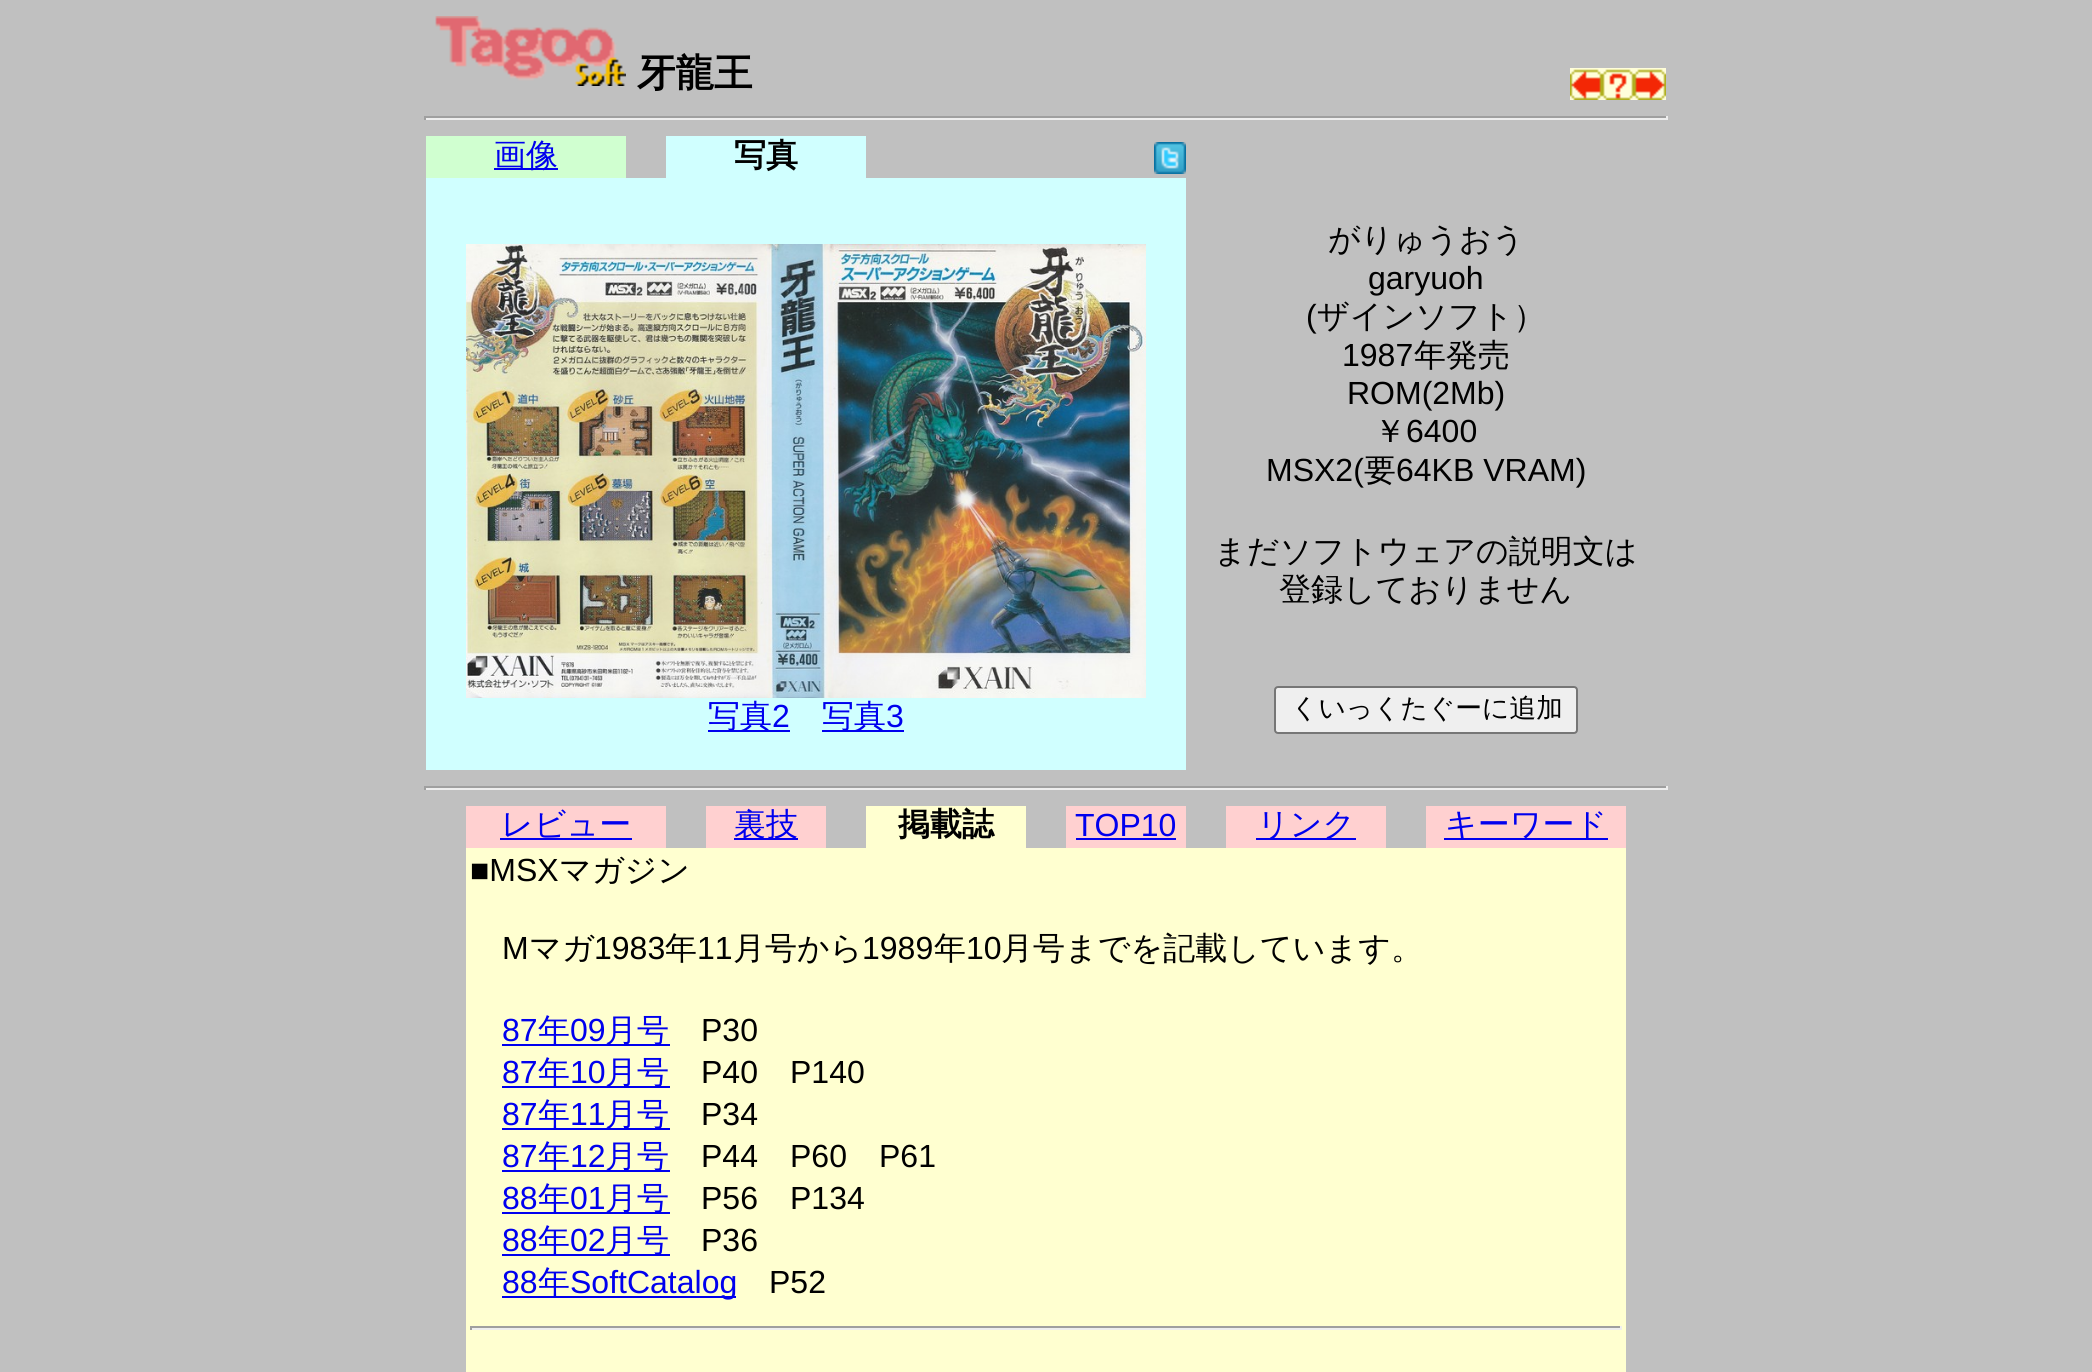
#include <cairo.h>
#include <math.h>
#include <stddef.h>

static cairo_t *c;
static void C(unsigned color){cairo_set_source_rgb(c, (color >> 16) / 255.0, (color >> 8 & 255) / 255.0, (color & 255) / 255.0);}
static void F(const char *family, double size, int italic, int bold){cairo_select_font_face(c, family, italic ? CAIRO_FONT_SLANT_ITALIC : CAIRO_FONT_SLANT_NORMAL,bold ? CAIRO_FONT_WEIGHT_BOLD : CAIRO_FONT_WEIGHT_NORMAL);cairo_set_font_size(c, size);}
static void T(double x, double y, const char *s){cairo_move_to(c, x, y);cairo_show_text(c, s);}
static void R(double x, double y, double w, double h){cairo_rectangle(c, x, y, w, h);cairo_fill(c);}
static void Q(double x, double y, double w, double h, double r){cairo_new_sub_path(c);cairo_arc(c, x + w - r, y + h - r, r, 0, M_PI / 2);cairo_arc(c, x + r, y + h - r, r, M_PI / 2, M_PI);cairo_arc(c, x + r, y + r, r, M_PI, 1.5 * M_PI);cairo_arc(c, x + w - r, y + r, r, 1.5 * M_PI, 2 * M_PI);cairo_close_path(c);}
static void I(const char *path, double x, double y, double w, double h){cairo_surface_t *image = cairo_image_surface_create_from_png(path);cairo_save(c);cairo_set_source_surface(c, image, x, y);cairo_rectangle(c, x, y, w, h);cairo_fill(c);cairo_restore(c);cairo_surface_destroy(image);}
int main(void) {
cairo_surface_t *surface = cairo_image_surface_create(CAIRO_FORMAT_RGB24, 2092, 1372);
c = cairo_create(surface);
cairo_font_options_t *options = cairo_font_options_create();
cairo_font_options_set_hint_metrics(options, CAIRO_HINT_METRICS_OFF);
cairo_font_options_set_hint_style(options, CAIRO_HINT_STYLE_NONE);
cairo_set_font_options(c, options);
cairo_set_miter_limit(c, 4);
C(0xc0c0c0);
cairo_paint(c);
I("1.png",435,16,191,70);
F("WenQuanYi Zen Hei",38.5,0,1);
C(0x000000);
T(637,86,"牙龍王");
I("2.png",1570,68,32,32);
I("3.png",1602,68,32,32);
I("4.png",1634,68,32,32);
C(0x9f9f9f);
R(424,116,1244,2);
C(0xeeeeee);
R(1666,116,2,4);
R(424,118,1244,2);
C(0x9f9f9f);
R(424,116,2,4);
C(0xd0ffd0);
R(426,136,200,42);
C(0x0000ee);
R(494,168,64,2);
F("WenQuanYi Zen Hei Medium",32,0,0);
T(494,166,"画像");
C(0xd0ffff);
R(666,136,200,42);
F("WenQuanYi Zen Hei",32,0,1);
C(0x000000);
T(734,166,"写真");
I("5.png",1154,142,32,32);
C(0xd0ffff);
R(426,178,760,592);
I("6.png",466,244,680,454);
C(0x0000ee);
R(708,730,82,2);
F("WenQuanYi Zen Hei Medium",32,0,0);
T(708,727,"写真");
F("Liberation Sans",32,0,0);
T(772,727,"2");
R(822,730,82,2);
F("WenQuanYi Zen Hei Medium",32,0,0);
T(822,727,"写真");
F("Liberation Sans",32,0,0);
T(886,727,"3");
F("WenQuanYi Zen Hei Medium",32,0,0);
C(0x000000);
T(1328,250,"がりゅうおう");
F("Liberation Sans",32,0,0);
T(1368,289,"garyuoh");
T(1306,327,"(");
F("WenQuanYi Zen Hei Medium",32,0,0);
T(1317,327,"ザインソフト）");
F("Liberation Sans",32,0,0);
T(1342,366,"1987");
F("WenQuanYi Zen Hei Medium",32,0,0);
T(1414,366,"年発売");
F("Liberation Sans",32,0,0);
T(1347,404,"ROM(2Mb)");
F("WenQuanYi Zen Hei Medium",32,0,0);
T(1374,442,"￥");
F("Liberation Sans",32,0,0);
T(1406,442,"6400");
T(1266,481,"MSX2(");
F("WenQuanYi Zen Hei Medium",32,0,0);
T(1364,481,"要");
F("Liberation Sans",32,0,0);
T(1396,481,"64KB VRAM)");
F("WenQuanYi Zen Hei Medium",32,0,0);
T(1214,562,"まだソフトウェアの説明文は");
T(1279,600,"登録しておりません");
C(0xefefef);
Q(1275,687,302,46,3);
cairo_fill_preserve(c);
C(0x767676);
cairo_stroke(c);
F("WenQuanYi Zen Hei Medium",26.75,0,0);
C(0x000000);
T(1291,717,"くいっくたぐーに追加");
C(0x9f9f9f);
R(424,786,1244,2);
C(0xeeeeee);
R(1666,786,2,4);
R(424,788,1244,2);
C(0x9f9f9f);
R(424,786,2,4);
C(0xffd0d0);
R(466,806,200,42);
F("WenQuanYi Zen Hei Medium",32,0,0);
C(0x0000ee);
T(501,835,"レビュー");
R(500,838,132,2);
C(0xffd0d0);
R(706,806,120,42);
C(0x0000ee);
R(734,838,64,2);
T(734,835,"裏技");
C(0xffffd0);
R(866,806,160,42);
F("WenQuanYi Zen Hei",32,0,1);
C(0x000000);
T(898,835,"掲載誌");
C(0xffd0d0);
R(1066,806,120,42);
F("Liberation Sans",32,0,0);
C(0x0000ee);
T(1075,836,"TOP10");
R(1076,838,100,2);
C(0xffd0d0);
R(1226,806,160,42);
C(0x0000ee);
R(1256,838,100,2);
F("WenQuanYi Zen Hei Medium",32,0,0);
T(1257,835,"リンク");
C(0xffd0d0);
R(1426,806,200,42);
C(0x0000ee);
R(1444,838,164,2);
T(1445,835,"キーワード");
C(0xffffd0);
R(466,848,1160,524);
F("Liberation Sans",32,0,0);
C(0x000000);
T(470,881,"■MSX");
F("WenQuanYi Zen Hei Medium",32,0,0);
T(559,881,"マガジン");
F("Liberation Sans",32,0,0);
T(502,959,"M");
F("WenQuanYi Zen Hei Medium",32,0,0);
T(529,959,"マガ");
F("Liberation Sans",32,0,0);
T(594,959,"1983");
F("WenQuanYi Zen Hei Medium",32,0,0);
T(665,959,"年");
F("Liberation Sans",32,0,0);
T(697,959,"11");
F("WenQuanYi Zen Hei Medium",32,0,0);
T(733,959,"月号から");
F("Liberation Sans",32,0,0);
T(862,959,"1989");
F("WenQuanYi Zen Hei Medium",32,0,0);
T(934,959,"年");
F("Liberation Sans",32,0,0);
T(966,959,"10");
F("WenQuanYi Zen Hei Medium",32,0,0);
T(1001,959,"月号までを記載しています。");
F("Liberation Sans",32,0,0);
C(0x0000ee);
T(502,1041,"87");
R(502,1044,168,2);
F("WenQuanYi Zen Hei Medium",32,0,0);
T(538,1041,"年");
F("Liberation Sans",32,0,0);
T(570,1041,"09");
F("WenQuanYi Zen Hei Medium",32,0,0);
T(605,1041,"月号");
F("Liberation Sans",32,0,0);
C(0x000000);
T(701,1041,"P30");
C(0x0000ee);
T(502,1083,"87");
R(502,1086,168,2);
F("WenQuanYi Zen Hei Medium",32,0,0);
T(538,1083,"年");
F("Liberation Sans",32,0,0);
T(570,1083,"10");
F("WenQuanYi Zen Hei Medium",32,0,0);
T(605,1083,"月号");
F("Liberation Sans",32,0,0);
C(0x000000);
T(701,1083,"P40");
T(790,1083,"P140");
C(0x0000ee);
T(502,1125,"87");
R(502,1128,168,2);
F("WenQuanYi Zen Hei Medium",32,0,0);
T(538,1125,"年");
F("Liberation Sans",32,0,0);
T(570,1125,"11");
F("WenQuanYi Zen Hei Medium",32,0,0);
T(605,1125,"月号");
F("Liberation Sans",32,0,0);
C(0x000000);
T(701,1125,"P34");
C(0x0000ee);
T(502,1167,"87");
R(502,1170,168,2);
F("WenQuanYi Zen Hei Medium",32,0,0);
T(538,1167,"年");
F("Liberation Sans",32,0,0);
T(570,1167,"12");
F("WenQuanYi Zen Hei Medium",32,0,0);
T(605,1167,"月号");
F("Liberation Sans",32,0,0);
C(0x000000);
T(701,1167,"P44");
T(790,1167,"P60");
T(879,1167,"P61");
C(0x0000ee);
T(502,1209,"88");
R(502,1212,168,2);
F("WenQuanYi Zen Hei Medium",32,0,0);
T(538,1209,"年");
F("Liberation Sans",32,0,0);
T(570,1209,"01");
F("WenQuanYi Zen Hei Medium",32,0,0);
T(605,1209,"月号");
F("Liberation Sans",32,0,0);
C(0x000000);
T(701,1209,"P56");
T(790,1209,"P134");
C(0x0000ee);
T(502,1251,"88");
R(502,1254,168,2);
F("WenQuanYi Zen Hei Medium",32,0,0);
T(538,1251,"年");
F("Liberation Sans",32,0,0);
T(570,1251,"02");
F("WenQuanYi Zen Hei Medium",32,0,0);
T(605,1251,"月号");
F("Liberation Sans",32,0,0);
C(0x000000);
T(701,1251,"P36");
C(0x0000ee);
T(502,1293,"88");
R(502,1296,234,2);
F("WenQuanYi Zen Hei Medium",32,0,0);
T(538,1293,"年");
F("Liberation Sans",32,0,0);
T(570,1293,"SoftCatalog");
C(0x000000);
T(769,1293,"P52");
C(0x9f9f9f);
R(470,1326,1152,2);
C(0xeeeeee);
R(1620,1326,2,4);
R(470,1328,1152,2);
C(0x9f9f9f);
R(470,1326,2,4);
cairo_surface_write_to_png(surface, "o.png");
cairo_font_options_destroy(options);
cairo_destroy(c);
cairo_surface_destroy(surface);
return 0;
}
